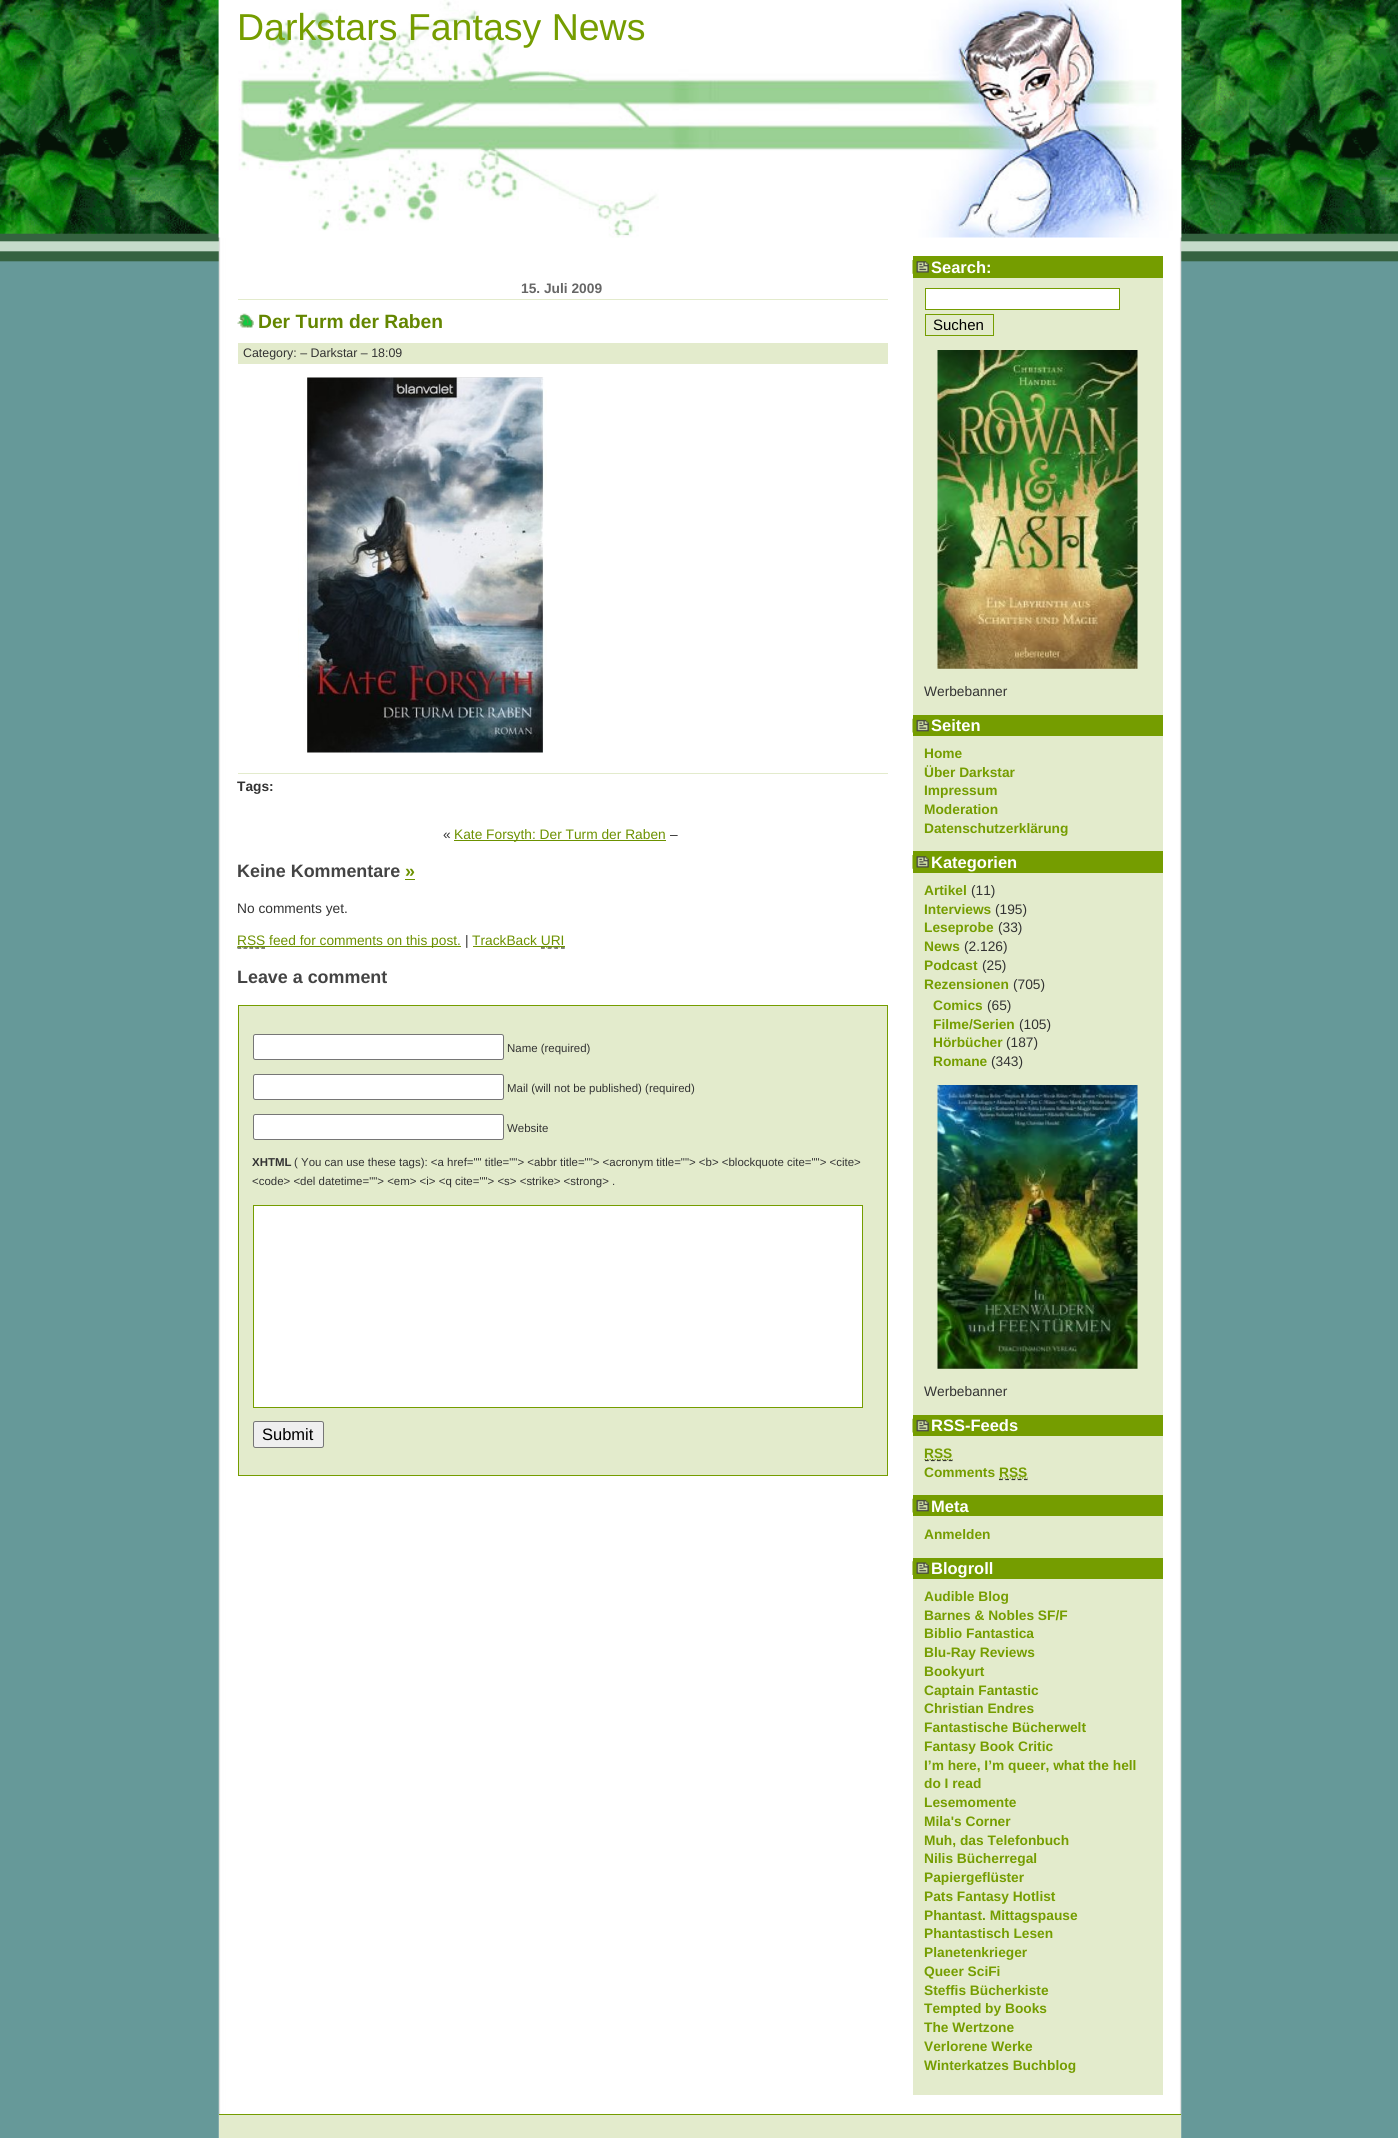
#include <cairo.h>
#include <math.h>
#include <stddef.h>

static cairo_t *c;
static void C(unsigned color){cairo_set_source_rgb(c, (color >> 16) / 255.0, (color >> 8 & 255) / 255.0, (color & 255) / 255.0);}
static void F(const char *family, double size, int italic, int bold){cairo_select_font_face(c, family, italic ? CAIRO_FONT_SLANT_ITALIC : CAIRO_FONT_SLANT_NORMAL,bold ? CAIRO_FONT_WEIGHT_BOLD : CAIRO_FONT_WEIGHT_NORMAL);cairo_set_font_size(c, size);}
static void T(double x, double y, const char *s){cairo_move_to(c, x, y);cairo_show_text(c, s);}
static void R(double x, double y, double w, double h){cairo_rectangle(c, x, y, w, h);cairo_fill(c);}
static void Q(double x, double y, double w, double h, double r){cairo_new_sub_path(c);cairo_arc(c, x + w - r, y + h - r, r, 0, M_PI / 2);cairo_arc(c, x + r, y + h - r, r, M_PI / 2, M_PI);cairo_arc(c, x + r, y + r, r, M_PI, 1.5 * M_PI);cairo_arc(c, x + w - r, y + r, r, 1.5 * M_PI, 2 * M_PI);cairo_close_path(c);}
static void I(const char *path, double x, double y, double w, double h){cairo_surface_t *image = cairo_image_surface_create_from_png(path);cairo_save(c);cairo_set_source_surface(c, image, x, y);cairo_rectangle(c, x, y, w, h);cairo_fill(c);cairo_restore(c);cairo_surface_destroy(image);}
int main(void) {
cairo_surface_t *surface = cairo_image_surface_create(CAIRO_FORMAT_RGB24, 1398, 2138);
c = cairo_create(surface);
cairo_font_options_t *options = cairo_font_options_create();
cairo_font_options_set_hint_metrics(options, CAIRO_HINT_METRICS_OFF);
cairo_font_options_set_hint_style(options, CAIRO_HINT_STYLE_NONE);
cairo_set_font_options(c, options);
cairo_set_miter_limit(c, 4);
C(0x669999);
cairo_paint(c);
I("1.png",0,0,1398,262);
I("2.png",218,0,964,2138);
I("3.png",218,0,964,238);
F("Liberation Sans",37.5,0,0);
C(0x759d00);
T(237,40,"Darkstars Fantasy News");
C(0xe3ebcc);
R(238,299,650,1);
F("Liberation Sans",13.75,0,1);
C(0x666666);
T(521,293,"15. Juli 2009");
I("4.png",237,313,17,15);
F("Liberation Sans",19.25,0,1);
C(0x648600);
T(258,328,"Der Turm der Raben");
C(0xe3ebcc);
R(238,343,650,21);
F("Liberation Sans",12.4,0,0);
C(0x333333);
T(243,357,"Category: – Darkstar – 18:09");
I("5.png",298,377,249,376);
C(0xe3ebcc);
R(238,773,650,1);
F("Liberation Sans",13.75,0,1);
C(0x333333);
T(237,791,"Tags:");
F("Liberation Sans",13.75,0,0);
T(443,839,"«");
C(0x6c9100);
R(454,840,212,1);
T(454,839,"Kate Forsyth: Der Turm der Raben");
C(0x333333);
T(670,839,"–");
F("Liberation Sans",17.9,0,1);
C(0x444444);
T(237,877,"Keine Kommentare");
C(0x6c9100);
T(405,877,"»");
R(405,879,10,1);
F("Liberation Sans",13.75,0,0);
C(0x333333);
T(237,913,"No comments yet.");
cairo_new_path(c);
cairo_move_to(c,237.5,948);
cairo_line_to(c,265,948);
cairo_set_line_width(c,1.2);
cairo_set_dash(c,(double[]){3.75,2.19},2,0);
cairo_stroke(c);
cairo_new_path(c);
cairo_move_to(c,237,947);
cairo_line_to(c,265,947);
C(0x6c9100);
cairo_set_dash(c,(double[]){1.25,1.25},2,0);
cairo_stroke(c);
R(238,946,223,1);
T(237,945,"RSS feed for comments on this post.");
C(0x333333);
T(465,945,"|");
C(0x6c9100);
T(472,945,"TrackBack URI");
R(473,946,68,1);
cairo_new_path(c);
cairo_move_to(c,541,948);
cairo_line_to(c,565,948);
C(0x333333);
cairo_set_dash(c,(double[]){3.75,2.91},2,0);
cairo_stroke(c);
cairo_new_path(c);
cairo_move_to(c,541,947);
cairo_line_to(c,564.5,947);
C(0x6c9100);
cairo_set_dash(c,(double[]){1.25,1.25},2,0);
cairo_stroke(c);
R(541,946,24,1);
F("Liberation Sans",17.9,0,1);
C(0x444444);
T(237,983,"Leave a comment");
C(0xe3ebcc);
cairo_rectangle(c,238.5,1005.5,649,470);
cairo_fill_preserve(c);
C(0x759d00);
cairo_set_line_width(c,1);
cairo_set_dash(c,NULL,0,0);
cairo_stroke(c);
C(0xffffff);
Q(253.5,1034.5,250,25,2);
cairo_fill_preserve(c);
C(0x767676);
cairo_stroke(c);
F("Liberation Sans",11.45,0,0);
C(0x333333);
T(507,1052,"Name (required)");
C(0xffffff);
Q(253.5,1074.5,250,25,2);
cairo_fill_preserve(c);
C(0x767676);
cairo_stroke(c);
C(0x333333);
T(507,1092,"Mail (will not be published) (required)");
C(0xffffff);
Q(253.5,1114.5,250,25,2);
cairo_fill_preserve(c);
C(0x767676);
cairo_stroke(c);
C(0x333333);
T(507,1132,"Website");
F("Liberation Sans",11.45,0,1);
T(252,1166,"XHTML");
F("Liberation Sans",11.45,0,0);
T(294,1166,"( You can use these tags): <a href=\"\" title=\"\"> <abbr title=\"\"> <acronym title=\"\"> <b> <blockquote cite=\"\"> <cite>");
T(252,1185,"<code> <del datetime=\"\"> <em> <i> <q cite=\"\"> <s> <strike> <strong> .");
C(0xffffff);
cairo_rectangle(c,253.5,1205.5,609,202);
cairo_fill_preserve(c);
C(0x759d00);
cairo_stroke(c);
C(0xefefef);
Q(253.5,1421.5,70,26,2);
cairo_fill_preserve(c);
C(0x767676);
cairo_stroke(c);
F("Liberation Sans",16.5,0,0);
C(0x000000);
T(262,1440,"Submit");
C(0xe3ebcc);
R(913,278,250,1817);
C(0x759d00);
R(913,256,250,22);
I("6.png",912,260,17,14);
F("Liberation Sans",16.5,0,1);
C(0xffffff);
T(931,273,"Search:");
cairo_rectangle(c,925.5,288.5,194,21);
cairo_fill_preserve(c);
C(0x759d00);
cairo_stroke(c);
cairo_rectangle(c,925.5,314.5,68,21);
cairo_stroke(c);
F("Liberation Sans",15,0,0);
C(0x000000);
T(933,330,"Suchen");
I("7.png",937,350,201,319);
F("Liberation Sans",13.75,0,0);
C(0x333333);
T(924,696,"Werbebanner");
C(0x759d00);
R(913,715,250,21);
I("8.png",912,718,17,15);
F("Liberation Sans",16.5,0,1);
C(0xffffff);
T(931,731,"Seiten");
F("Liberation Sans",13.75,0,1);
C(0x759d00);
T(924,758,"Home");
T(924,777,"Über Darkstar");
T(924,795,"Impressum");
T(924,814,"Moderation");
T(924,833,"Datenschutzerklärung");
R(913,851,250,22);
I("6.png",912,855,17,14);
F("Liberation Sans",16.5,0,1);
C(0xffffff);
T(931,868,"Kategorien");
F("Liberation Sans",13.75,0,1);
C(0x759d00);
T(924,895,"Artikel");
F("Liberation Sans",13.75,0,0);
C(0x333333);
T(971,895,"(11)");
F("Liberation Sans",13.75,0,1);
C(0x759d00);
T(924,914,"Interviews");
F("Liberation Sans",13.75,0,0);
C(0x333333);
T(995,914,"(195)");
F("Liberation Sans",13.75,0,1);
C(0x759d00);
T(924,932,"Leseprobe");
F("Liberation Sans",13.75,0,0);
C(0x333333);
T(998,932,"(33)");
F("Liberation Sans",13.75,0,1);
C(0x759d00);
T(924,951,"News");
F("Liberation Sans",13.75,0,0);
C(0x333333);
T(964,951,"(2.126)");
F("Liberation Sans",13.75,0,1);
C(0x759d00);
T(924,970,"Podcast");
F("Liberation Sans",13.75,0,0);
C(0x333333);
T(982,970,"(25)");
F("Liberation Sans",13.75,0,1);
C(0x759d00);
T(924,989,"Rezensionen");
F("Liberation Sans",13.75,0,0);
C(0x333333);
T(1013,989,"(705)");
F("Liberation Sans",13.75,0,1);
C(0x759d00);
T(933,1010,"Comics");
F("Liberation Sans",13.75,0,0);
C(0x333333);
T(987,1010,"(65)");
F("Liberation Sans",13.75,0,1);
C(0x759d00);
T(933,1029,"Filme/Serien");
F("Liberation Sans",13.75,0,0);
C(0x333333);
T(1019,1029,"(105)");
F("Liberation Sans",13.75,0,1);
C(0x759d00);
T(933,1047,"Hörbücher");
F("Liberation Sans",13.75,0,0);
C(0x333333);
T(1006,1047,"(187)");
F("Liberation Sans",13.75,0,1);
C(0x759d00);
T(933,1066,"Romane");
F("Liberation Sans",13.75,0,0);
C(0x333333);
T(991,1066,"(343)");
I("9.png",937,1085,201,284);
T(924,1396,"Werbebanner");
C(0x759d00);
R(913,1415,250,21);
I("8.png",912,1418,17,15);
F("Liberation Sans",16.5,0,1);
C(0xffffff);
T(931,1431,"RSS-Feeds");
cairo_new_path(c);
cairo_move_to(c,925,1460.5);
cairo_line_to(c,952.5,1460.5);
C(0x333333);
cairo_set_line_width(c,1.2);
cairo_set_dash(c,(double[]){3.75,2.19},2,0);
cairo_stroke(c);
cairo_new_path(c);
cairo_move_to(c,924.5,1459.5);
cairo_line_to(c,952.5,1459.5);
C(0x759d00);
cairo_set_dash(c,(double[]){1.25,1.25},2,0);
cairo_stroke(c);
F("Liberation Sans",13.75,0,1);
T(924,1458,"RSS");
T(924,1477,"Comments");
cairo_new_path(c);
cairo_move_to(c,999,1479.5);
cairo_line_to(c,1027.5,1479.5);
C(0x333333);
cairo_set_dash(c,(double[]){3.75,2.5},2,0);
cairo_stroke(c);
cairo_new_path(c);
cairo_move_to(c,999.5,1478);
cairo_line_to(c,1027.5,1478);
C(0x759d00);
cairo_set_dash(c,(double[]){1.25,1.25},2,0);
cairo_stroke(c);
T(999,1477,"RSS");
R(913,1495,250,21);
I("8.png",912,1498,17,15);
F("Liberation Sans",16.5,0,1);
C(0xffffff);
T(931,1512,"Meta");
F("Liberation Sans",13.75,0,1);
C(0x759d00);
T(924,1539,"Anmelden");
R(913,1558,250,21);
I("10.png",912,1561,17,14);
F("Liberation Sans",16.5,0,1);
C(0xffffff);
T(931,1574,"Blogroll");
F("Liberation Sans",13.75,0,1);
C(0x759d00);
T(924,1601,"Audible Blog");
T(924,1620,"Barnes & Nobles SF/F");
T(924,1638,"Biblio Fantastica");
T(924,1657,"Blu-Ray Reviews");
T(924,1676,"Bookyurt");
T(924,1695,"Captain Fantastic");
T(924,1713,"Christian Endres");
T(924,1732,"Fantastische Bücherwelt");
T(924,1751,"Fantasy Book Critic");
T(924,1770,"I’m here, I’m queer, what the hell");
T(924,1788,"do I read");
T(924,1807,"Lesemomente");
T(924,1826,"Mila's Corner");
T(924,1845,"Muh, das Telefonbuch");
T(924,1863,"Nilis Bücherregal");
T(924,1882,"Papiergeflüster");
T(924,1901,"Pats Fantasy Hotlist");
T(924,1920,"Phantast. Mittagspause");
T(924,1938,"Phantastisch Lesen");
T(924,1957,"Planetenkrieger");
T(924,1976,"Queer SciFi");
T(924,1995,"Steffis Bücherkiste");
T(924,2013,"Tempted by Books");
T(924,2032,"The Wertzone");
T(924,2051,"Verlorene Werke");
T(924,2070,"Winterkatzes Buchblog");
C(0xe3ebcc);
R(219,2115,962,23);
C(0x759d00);
R(219,2114,962,1);
cairo_surface_write_to_png(surface, "o.png");
cairo_font_options_destroy(options);
cairo_destroy(c);
cairo_surface_destroy(surface);
return 0;
}
